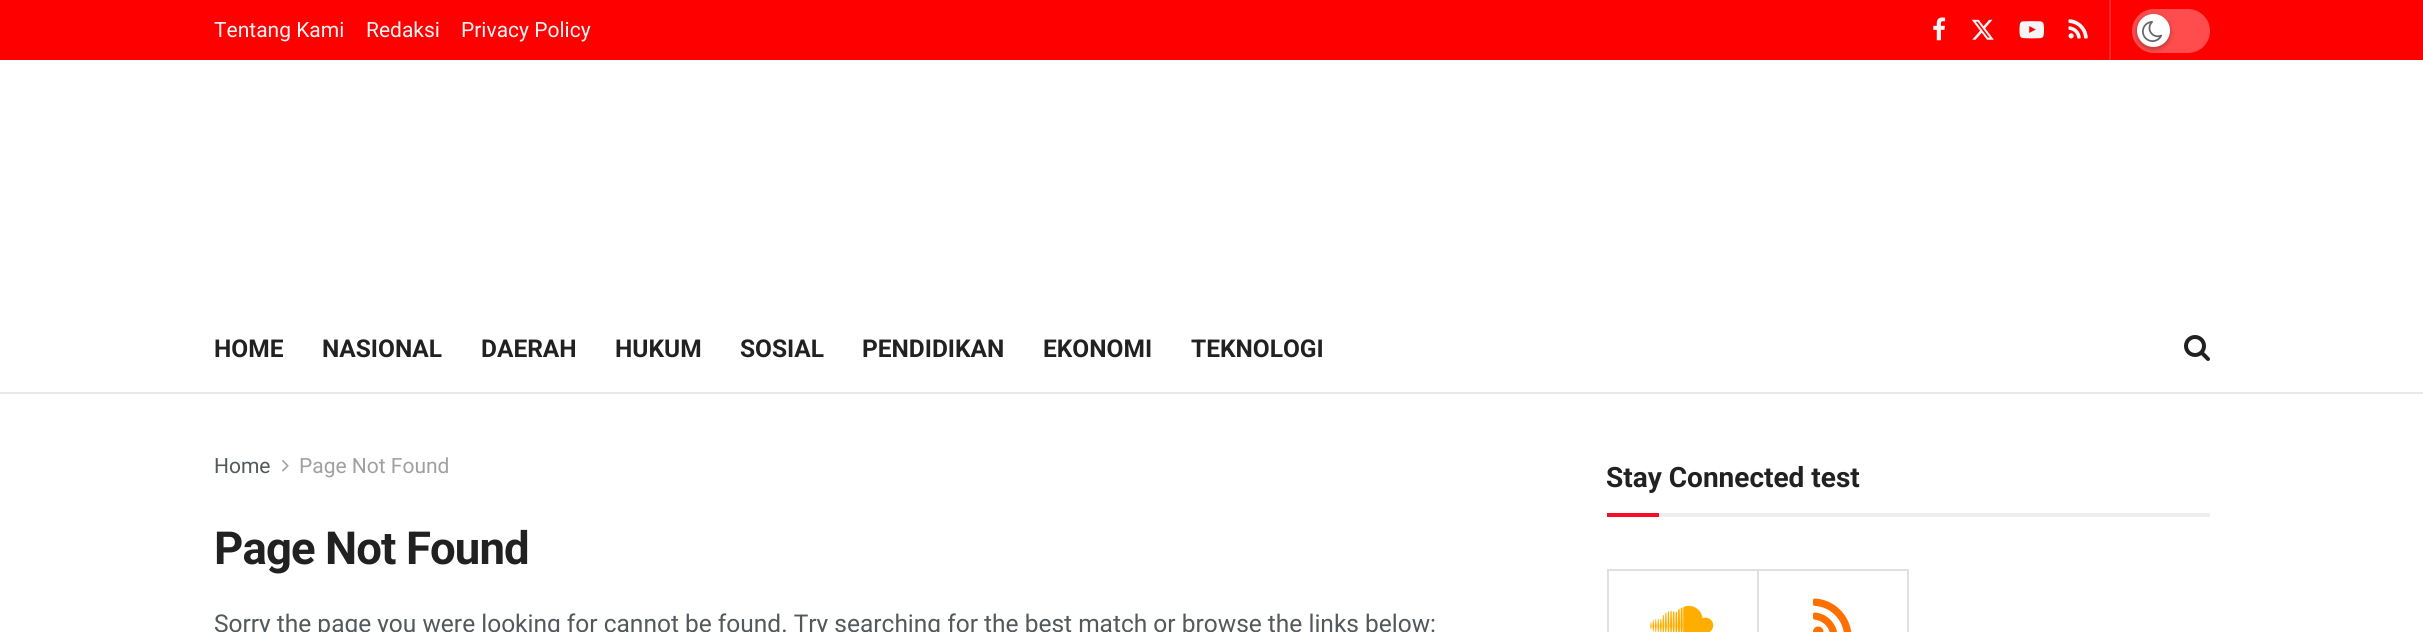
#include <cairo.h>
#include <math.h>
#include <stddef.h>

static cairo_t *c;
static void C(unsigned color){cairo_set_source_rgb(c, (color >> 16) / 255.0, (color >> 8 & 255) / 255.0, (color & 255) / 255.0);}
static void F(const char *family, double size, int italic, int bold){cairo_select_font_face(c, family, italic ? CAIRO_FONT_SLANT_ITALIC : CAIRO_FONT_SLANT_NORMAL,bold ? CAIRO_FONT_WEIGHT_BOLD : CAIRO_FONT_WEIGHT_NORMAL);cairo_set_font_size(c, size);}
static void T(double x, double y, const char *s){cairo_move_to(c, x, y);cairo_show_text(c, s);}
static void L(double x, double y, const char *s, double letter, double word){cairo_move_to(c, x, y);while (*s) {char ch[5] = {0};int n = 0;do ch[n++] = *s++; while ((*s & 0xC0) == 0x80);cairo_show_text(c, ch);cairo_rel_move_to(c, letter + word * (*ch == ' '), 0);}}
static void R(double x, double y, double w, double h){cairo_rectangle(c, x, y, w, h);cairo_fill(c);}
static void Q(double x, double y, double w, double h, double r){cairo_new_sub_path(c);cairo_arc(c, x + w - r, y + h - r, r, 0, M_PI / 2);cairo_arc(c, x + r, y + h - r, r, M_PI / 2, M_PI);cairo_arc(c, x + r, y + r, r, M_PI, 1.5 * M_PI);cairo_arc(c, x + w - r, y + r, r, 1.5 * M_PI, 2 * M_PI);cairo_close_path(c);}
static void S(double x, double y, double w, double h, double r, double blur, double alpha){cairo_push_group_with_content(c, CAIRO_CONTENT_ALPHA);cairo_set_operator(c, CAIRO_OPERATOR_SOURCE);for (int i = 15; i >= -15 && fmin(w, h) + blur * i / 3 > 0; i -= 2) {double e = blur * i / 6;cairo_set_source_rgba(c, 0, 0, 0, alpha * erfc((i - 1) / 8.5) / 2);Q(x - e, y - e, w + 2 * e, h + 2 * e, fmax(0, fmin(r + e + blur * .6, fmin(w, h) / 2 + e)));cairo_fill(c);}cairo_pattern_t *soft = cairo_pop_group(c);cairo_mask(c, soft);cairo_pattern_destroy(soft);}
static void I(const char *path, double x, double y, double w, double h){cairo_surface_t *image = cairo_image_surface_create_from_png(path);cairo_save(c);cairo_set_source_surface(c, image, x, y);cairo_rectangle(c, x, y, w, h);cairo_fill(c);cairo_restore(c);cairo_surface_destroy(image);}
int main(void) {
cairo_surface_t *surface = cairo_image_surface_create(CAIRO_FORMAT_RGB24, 2423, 632);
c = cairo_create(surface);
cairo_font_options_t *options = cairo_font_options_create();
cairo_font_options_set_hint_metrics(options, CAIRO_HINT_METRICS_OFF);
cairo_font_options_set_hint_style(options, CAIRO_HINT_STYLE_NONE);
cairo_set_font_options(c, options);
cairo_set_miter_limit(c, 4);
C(0xffffff);
cairo_paint(c);
C(0xff0000);
R(0,0,2423,60);
C(0xff2626);
R(2109,0,2,60);
F("Roboto",21,0,0);
C(0xf5f5f5);
T(214,37,"Tentang Kami");
T(366,37,"Redaksi");
T(461,37,"Privacy Policy");
I("1.png",1933,17,13,24);
I("2.png",1971,19,23,21);
I("3.png",2019,21,25,18);
I("4.png",2068,19,20,20);
C(0xff4d4d);
Q(2132,9,78,44,22);
cairo_fill(c);
C(0x000000);
S(2137,16,33,33,16.5,2.5,.3);
C(0xffffff);
cairo_arc(c,2153.5,30.5,16.5,0,2 * M_PI);
cairo_fill(c);
I("5.png",2142,21,21,21);
C(0xe8e8e8);
R(0,392,2423,2);
F("Roboto",24.5,0,1);
C(0x212121);
T(214,357,"HOME");
T(322,357,"NASIONAL");
T(481,357,"DAERAH");
T(615,357,"HUKUM");
T(740,357,"SOSIAL");
T(862,357,"PENDIDIKAN");
T(1043,357,"EKONOMI");
T(1191,357,"TEKNOLOGI");
I("6.png",2184,335,26,26);
F("Roboto",21,0,0);
C(0x53585c);
T(214,473,"Home");
I("7.png",282,460,7,12);
C(0xa0a0a0);
T(299,473,"Page Not Found");
F("Roboto",45.5,0,1);
C(0x212121);
L(214,564,"Page Not Found",-.9,0);
F("Roboto",24.5,0,0);
C(0x53585c);
T(214,632,"Sorry the page you were looking for cannot be found. Try searching for the best match or browse the links below:");
C(0xeeeeee);
R(1659,513,551,4);
F("Roboto",28,0,1);
C(0x212121);
T(1606,487,"Stay Connected test");
C(0xf70d28);
R(1607,513,52,4);
cairo_rectangle(c,1608,570,150,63);
C(0xe0e0e0);
cairo_stroke(c);
I("8.png",1650,605,64,27);
cairo_rectangle(c,1758,570,150,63);
cairo_stroke(c);
I("9.png",1813,598,39,34);
cairo_surface_write_to_png(surface, "o.png");
cairo_font_options_destroy(options);
cairo_destroy(c);
cairo_surface_destroy(surface);
return 0;
}
